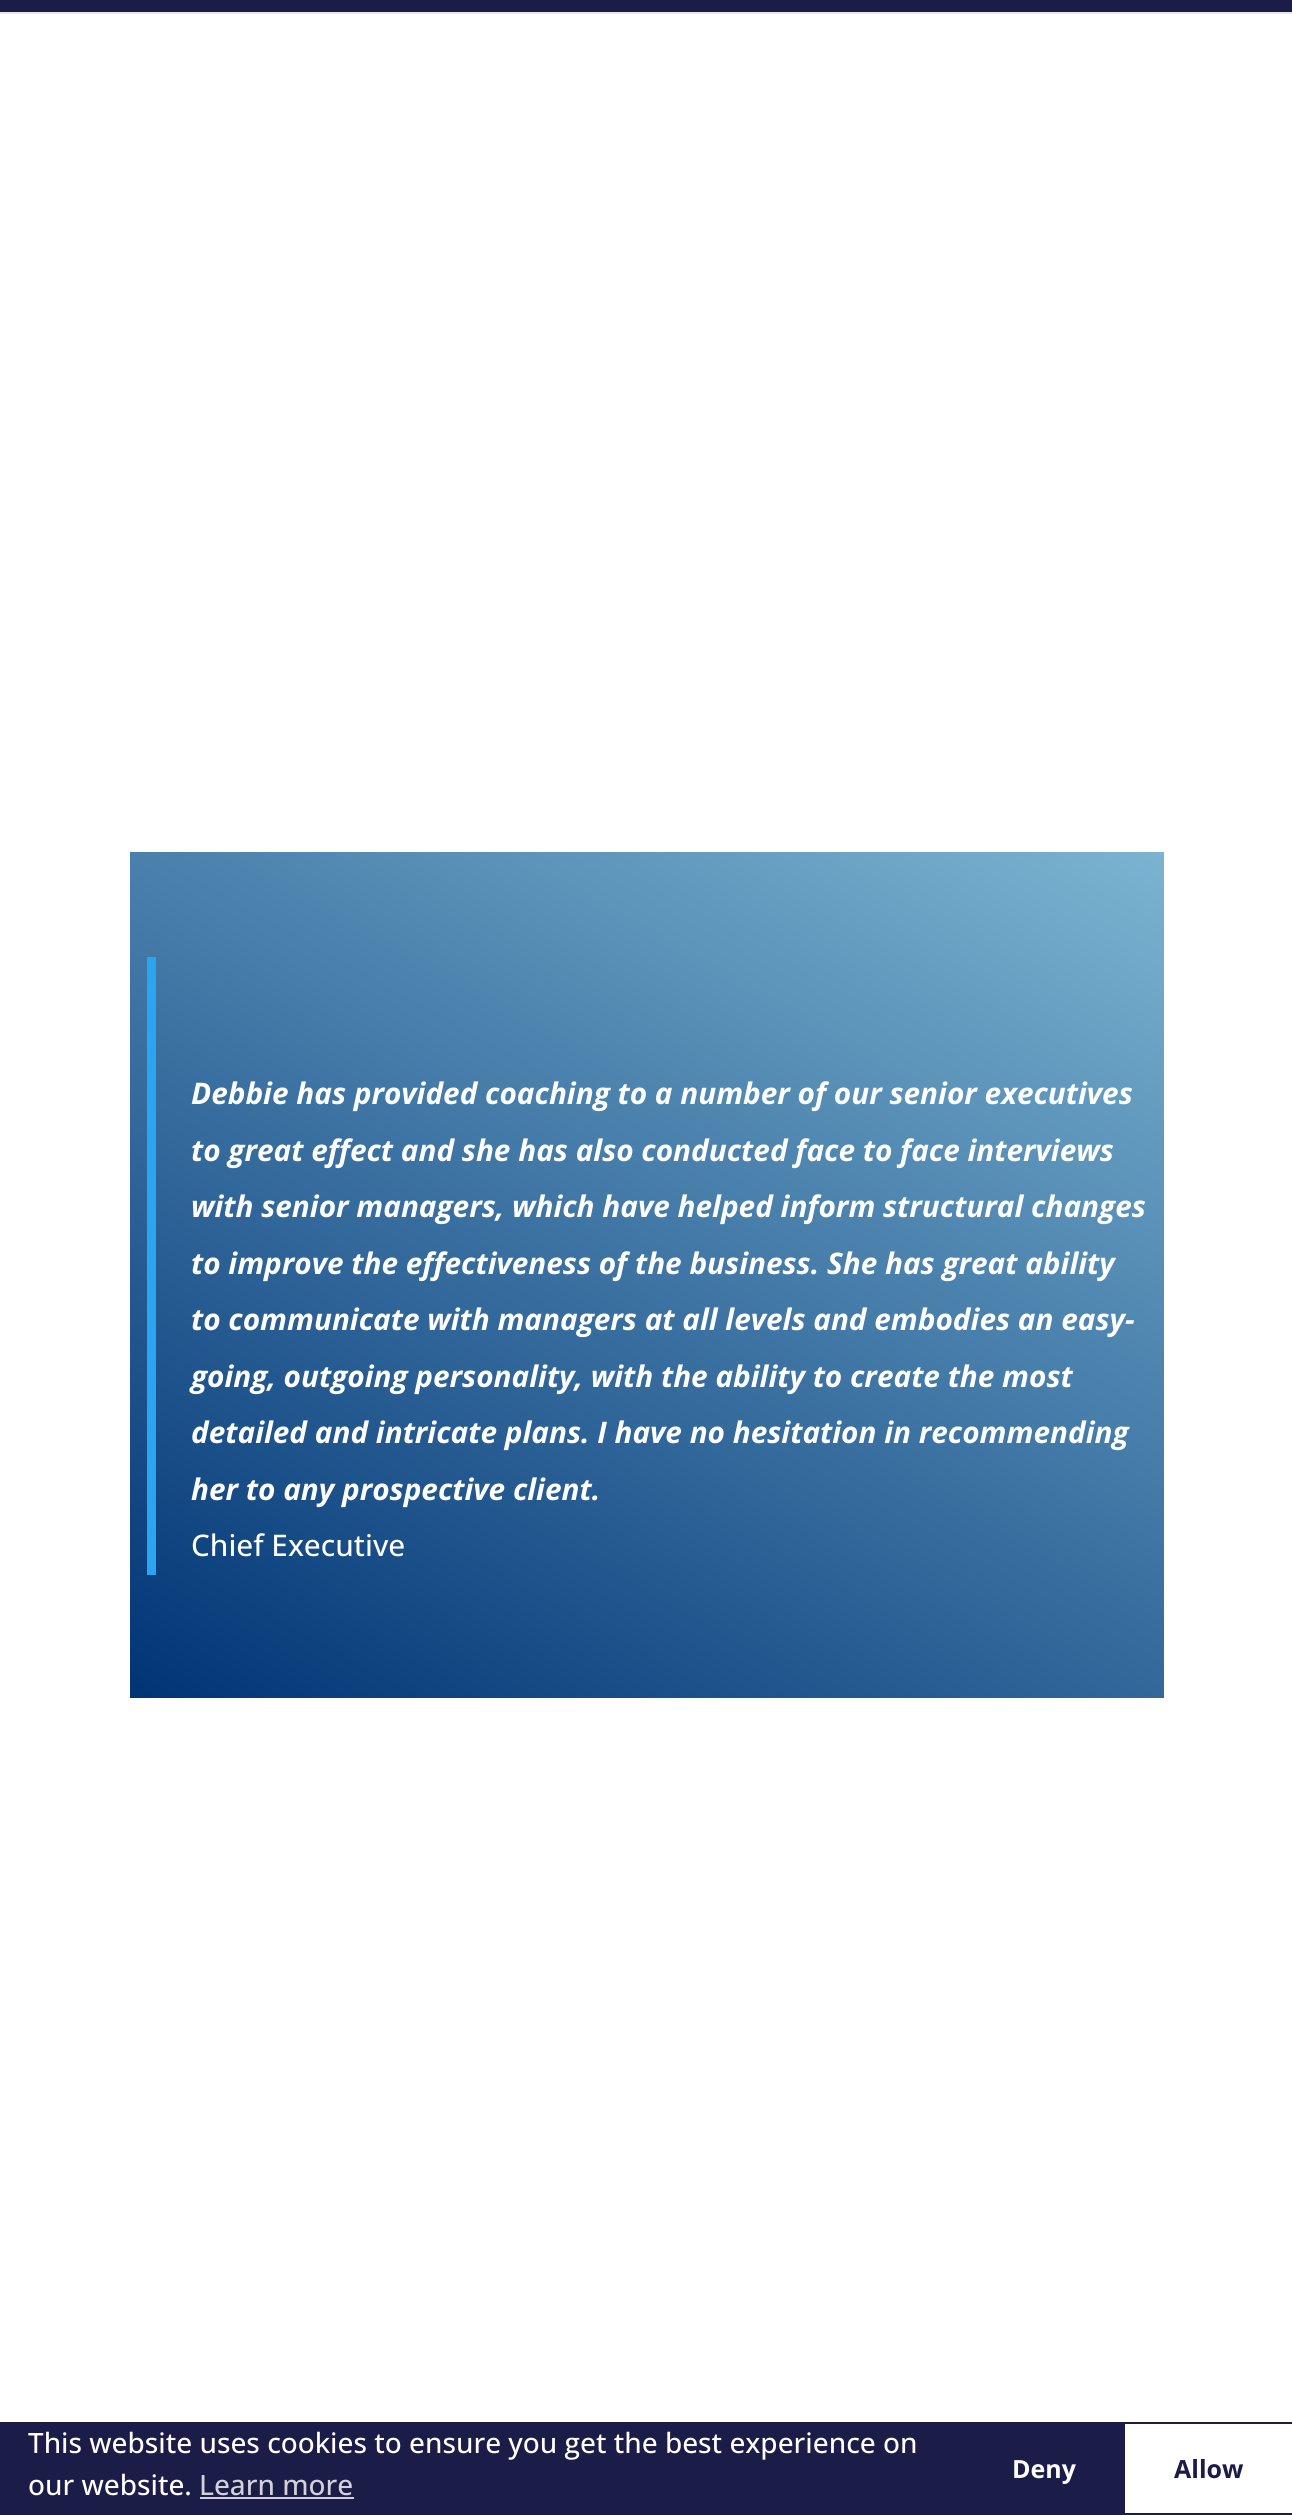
#include <cairo.h>
#include <math.h>
#include <stddef.h>

static cairo_t *c;
static void C(unsigned color){cairo_set_source_rgb(c, (color >> 16) / 255.0, (color >> 8 & 255) / 255.0, (color & 255) / 255.0);}
static void F(const char *family, double size, int italic, int bold){cairo_select_font_face(c, family, italic ? CAIRO_FONT_SLANT_ITALIC : CAIRO_FONT_SLANT_NORMAL,bold ? CAIRO_FONT_WEIGHT_BOLD : CAIRO_FONT_WEIGHT_NORMAL);cairo_set_font_size(c, size);}
static void T(double x, double y, const char *s){cairo_move_to(c, x, y);cairo_show_text(c, s);}
static void R(double x, double y, double w, double h){cairo_rectangle(c, x, y, w, h);cairo_fill(c);}
int main(void) {
cairo_surface_t *surface = cairo_image_surface_create(CAIRO_FORMAT_RGB24, 1292, 2515);
c = cairo_create(surface);
cairo_font_options_t *options = cairo_font_options_create();
cairo_font_options_set_hint_metrics(options, CAIRO_HINT_METRICS_OFF);
cairo_font_options_set_hint_style(options, CAIRO_HINT_STYLE_NONE);
cairo_set_font_options(c, options);
cairo_set_miter_limit(c, 4);
cairo_pattern_t *gradient;
C(0xffffff);
cairo_paint(c);
C(0xe6e6e6);
R(0,12,1292,2);
C(0x1c1c49);
R(0,0,1292,12);
gradient = cairo_pattern_create_linear(346,1817,947,732);
cairo_pattern_add_color_stop_rgba(gradient,0,0,0.204,0.459,1);
cairo_pattern_add_color_stop_rgba(gradient,1,0.482,0.706,0.82,1);
cairo_set_source(c,gradient);
cairo_pattern_destroy(gradient);
R(130,852,1034,846);
C(0x2ea3f2);
R(147,957,9,618);
F("Open Sans",29.75,1,1);
C(0xffffff);
T(191,1104,"Debbie has provided coaching to a number of our senior executives");
T(191,1161,"to great effect and she has also conducted face to face interviews");
T(191,1217,"with senior managers, which have helped inform structural changes");
T(191,1274,"to improve the effectiveness of the business. She has great ability");
T(191,1330,"to communicate with managers at all levels and embodies an easy-");
T(191,1387,"going, outgoing personality, with the ability to create the most");
T(191,1443,"detailed and intricate plans. I have no hesitation in recommending");
T(191,1500,"her to any prospective client.");
F("Open Sans Medium",29.75,0,0);
T(191,1556,"Chief Executive");
C(0x1c1c49);
R(0,2422,1292,93);
F("Open Sans Medium",28,0,0);
C(0xffffff);
T(28,2453,"This website uses cookies to ensure you get the best experience on");
T(28,2495,"our website.");
C(0xd2d2db);
T(199,2495,"Learn more");
R(200,2497,154,2);
F("Open Sans",25,0,1);
C(0xffffff);
T(1012,2478,"Deny");
R(1125,2424,167,89);
C(0x1c1c49);
T(1174,2478,"Allow");
cairo_surface_write_to_png(surface, "o.png");
cairo_font_options_destroy(options);
cairo_destroy(c);
cairo_surface_destroy(surface);
return 0;
}
